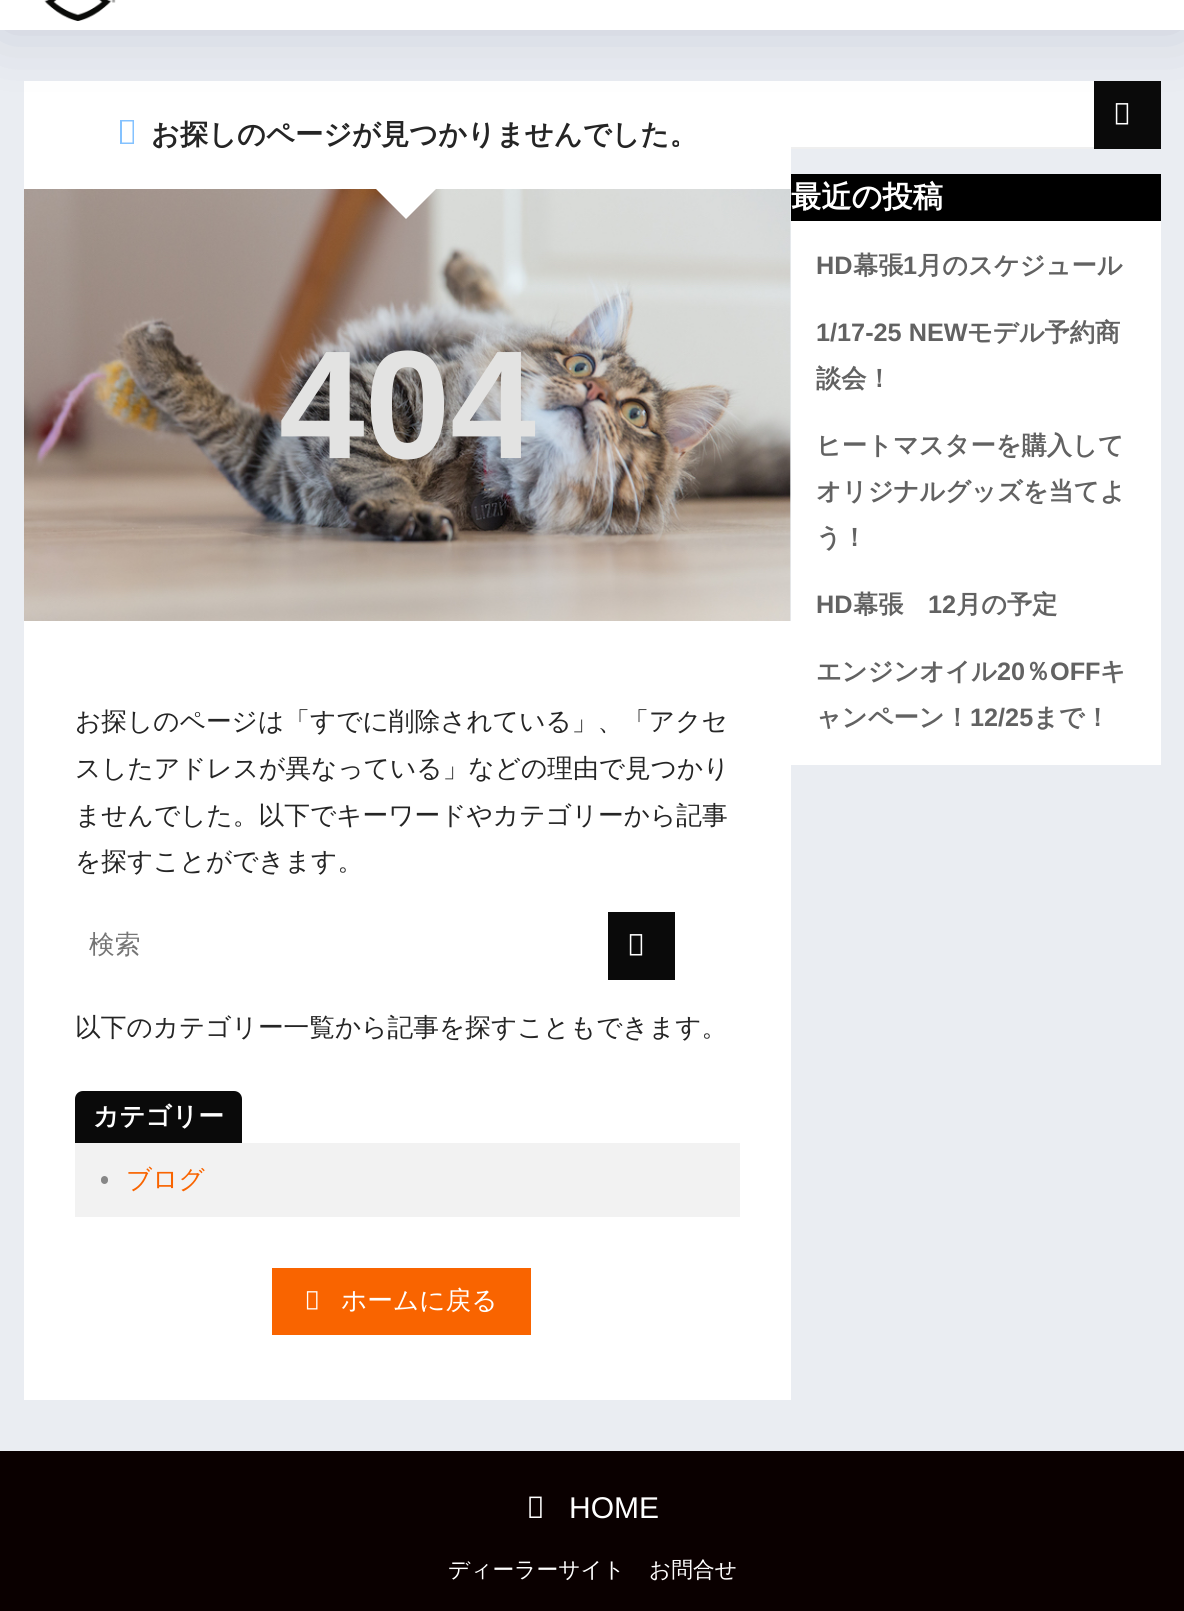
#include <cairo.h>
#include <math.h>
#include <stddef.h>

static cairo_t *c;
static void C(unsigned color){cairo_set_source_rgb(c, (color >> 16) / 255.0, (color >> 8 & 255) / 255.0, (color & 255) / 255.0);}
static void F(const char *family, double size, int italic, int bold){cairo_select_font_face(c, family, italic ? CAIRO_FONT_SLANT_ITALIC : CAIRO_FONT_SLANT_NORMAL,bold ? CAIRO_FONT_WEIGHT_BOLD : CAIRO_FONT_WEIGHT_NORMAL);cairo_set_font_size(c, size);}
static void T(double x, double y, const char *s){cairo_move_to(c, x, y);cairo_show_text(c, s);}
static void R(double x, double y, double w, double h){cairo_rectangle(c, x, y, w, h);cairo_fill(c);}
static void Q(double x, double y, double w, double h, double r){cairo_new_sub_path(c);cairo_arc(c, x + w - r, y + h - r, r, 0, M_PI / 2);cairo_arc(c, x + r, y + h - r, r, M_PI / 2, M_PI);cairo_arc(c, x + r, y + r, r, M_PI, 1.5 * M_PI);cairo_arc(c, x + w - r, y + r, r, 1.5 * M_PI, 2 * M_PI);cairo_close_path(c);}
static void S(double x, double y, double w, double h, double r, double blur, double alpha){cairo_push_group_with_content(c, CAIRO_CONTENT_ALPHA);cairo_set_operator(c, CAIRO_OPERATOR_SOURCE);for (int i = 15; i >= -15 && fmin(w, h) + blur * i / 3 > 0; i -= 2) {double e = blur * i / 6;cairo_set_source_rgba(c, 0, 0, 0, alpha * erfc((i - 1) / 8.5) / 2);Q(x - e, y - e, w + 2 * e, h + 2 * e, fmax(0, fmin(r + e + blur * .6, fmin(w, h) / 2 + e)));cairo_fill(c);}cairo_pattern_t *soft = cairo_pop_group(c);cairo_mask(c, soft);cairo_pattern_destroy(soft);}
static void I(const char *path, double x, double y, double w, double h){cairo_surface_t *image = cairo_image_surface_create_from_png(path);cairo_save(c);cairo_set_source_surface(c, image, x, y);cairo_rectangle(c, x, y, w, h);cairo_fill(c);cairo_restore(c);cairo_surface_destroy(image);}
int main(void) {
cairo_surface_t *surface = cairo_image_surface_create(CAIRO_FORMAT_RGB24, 1184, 1611);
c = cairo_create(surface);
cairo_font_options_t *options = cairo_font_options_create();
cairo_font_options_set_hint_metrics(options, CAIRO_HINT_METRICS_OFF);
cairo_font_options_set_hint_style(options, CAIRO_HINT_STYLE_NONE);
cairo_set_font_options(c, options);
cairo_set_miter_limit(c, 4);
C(0xeaedf2);
cairo_paint(c);
C(0xffffff);
R(24,81,767,108);
C(0x84c2ff);
cairo_new_path(c);
cairo_move_to(c,120,144);
cairo_line_to(c,120,120);
cairo_line_to(c,134,120);
cairo_line_to(c,134,144);
cairo_close_path(c);
cairo_move_to(c,122,142.5);
cairo_line_to(c,132.5,142.5);
cairo_line_to(c,132.5,121.5);
cairo_line_to(c,122,121.5);
cairo_close_path(c);
cairo_fill(c);
C(0xffffff);
R(791,81,303,66);
C(0x0a0a0a);
R(1094,81,67,68);
I("3.png",1115,103,14,22);
C(0x000c42);
S(0,-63,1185,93,0,34,.15);
C(0xffffff);
R(0,0,1184,30);
I("1.png",44,0,72,21);
F("WenQuanYi Zen Hei",28.25,0,1);
C(0x252525);
T(151,144,"お探しのページが見つかりませんでした。");
I("2.png",24,189,767,432);
C(0xffffff);
cairo_new_path(c);
cairo_move_to(c,376,189);
cairo_line_to(c,436,189);
cairo_line_to(c,406,219);
cairo_close_path(c);
cairo_fill(c);
F("Liberation Sans",154,0,1);
C(0xe3e3e2);
T(279,458,"404");
C(0xffffff);
R(24,621,767,779);
F("WenQuanYi Zen Hei Medium",25.7,0,0);
C(0x252525);
T(75,730,"お探しのページは「すでに削除されている」、「アクセ");
T(75,777,"スしたアドレスが異なっている」などの理由で見つかり");
T(75,824,"ませんでした。以下でキーワードやカテゴリーから記事");
T(75,870,"を探すことができます。");
C(0x757575);
T(89,953,"検索");
C(0x0a0a0a);
R(608,912,67,68);
I("3.png",629,934,14,22);
C(0x252525);
T(75,1036,"以下のカテゴリー一覧から記事を探すこともできます。");
C(0x0a0a0a);
cairo_new_path(c);
cairo_move_to(c,83,1091);
cairo_line_to(c,234,1091);
cairo_curve_to(c,238.5,1091,242,1094.5,242,1099);
cairo_line_to(c,242,1143);
cairo_line_to(c,75,1143);
cairo_line_to(c,75,1099);
cairo_curve_to(c,75,1094.5,78.5,1091,83,1091);
cairo_close_path(c);
cairo_fill(c);
F("WenQuanYi Zen Hei",25.7,0,1);
C(0xffffff);
T(93,1125,"カテゴリー");
C(0xf2f2f2);
R(75,1143,665,74);
C(0x878787);
Q(101,1176,7,8,3.5);
cairo_fill(c);
F("WenQuanYi Zen Hei Medium",25.7,0,0);
C(0xf96400);
T(126,1188,"ブログ");
R(272,1268,259,67);
I("4.png",306,1291,12,19);
C(0xffffff);
T(341,1309,"ホームに戻る");
C(0xefefef);
R(791,147,303,2);
C(0x000000);
R(791,174,370,47);
F("WenQuanYi Zen Hei",30.25,0,1);
C(0xffffff);
T(791,207,"最近の投稿");
R(791,221,370,544);
F("Liberation Sans",25.25,0,1);
C(0x626262);
T(816,274,"HD");
F("WenQuanYi Zen Hei",25.25,0,1);
T(853,274,"幕張");
F("Liberation Sans",25.25,0,1);
T(903,274,"1");
F("WenQuanYi Zen Hei",25.25,0,1);
T(917,274,"月のスケジュール");
F("Liberation Sans",25.25,0,1);
T(816,341,"1/17-25 NEW");
F("WenQuanYi Zen Hei",25.25,0,1);
T(967,341,"モデル予約商");
T(816,387,"談会！");
T(816,454,"ヒートマスターを購入して");
T(816,500,"オリジナルグッズを当てよ");
T(816,546,"う！");
F("Liberation Sans",25.25,0,1);
T(816,613,"HD");
F("WenQuanYi Zen Hei",25.25,0,1);
T(853,613,"幕張");
F("Liberation Sans",25.25,0,1);
T(928,613,"12");
F("WenQuanYi Zen Hei",25.25,0,1);
T(956,613,"月の予定");
T(816,680,"エンジンオイル");
F("Liberation Sans",25.25,0,1);
T(997,680,"20");
F("WenQuanYi Zen Hei",25.25,0,1);
T(1025,680,"％");
F("Liberation Sans",25.25,0,1);
T(1050,680,"OFF");
F("WenQuanYi Zen Hei",25.25,0,1);
T(1100,680,"キ");
T(816,726,"ャンペーン！");
F("Liberation Sans",25.25,0,1);
T(970,726,"12/25");
F("WenQuanYi Zen Hei",25.25,0,1);
T(1033,726,"まで！");
C(0x0a0000);
R(0,1451,1184,160);
I("5.png",529,1496,13,22);
F("Liberation Sans",30,0,0);
C(0xffffff);
T(569,1518,"HOME");
F("WenQuanYi Zen Hei Medium",21.75,0,0);
T(448,1577,"ディーラーサイト");
T(649,1577,"お問合せ");
cairo_surface_write_to_png(surface, "o.png");
cairo_font_options_destroy(options);
cairo_destroy(c);
cairo_surface_destroy(surface);
return 0;
}
